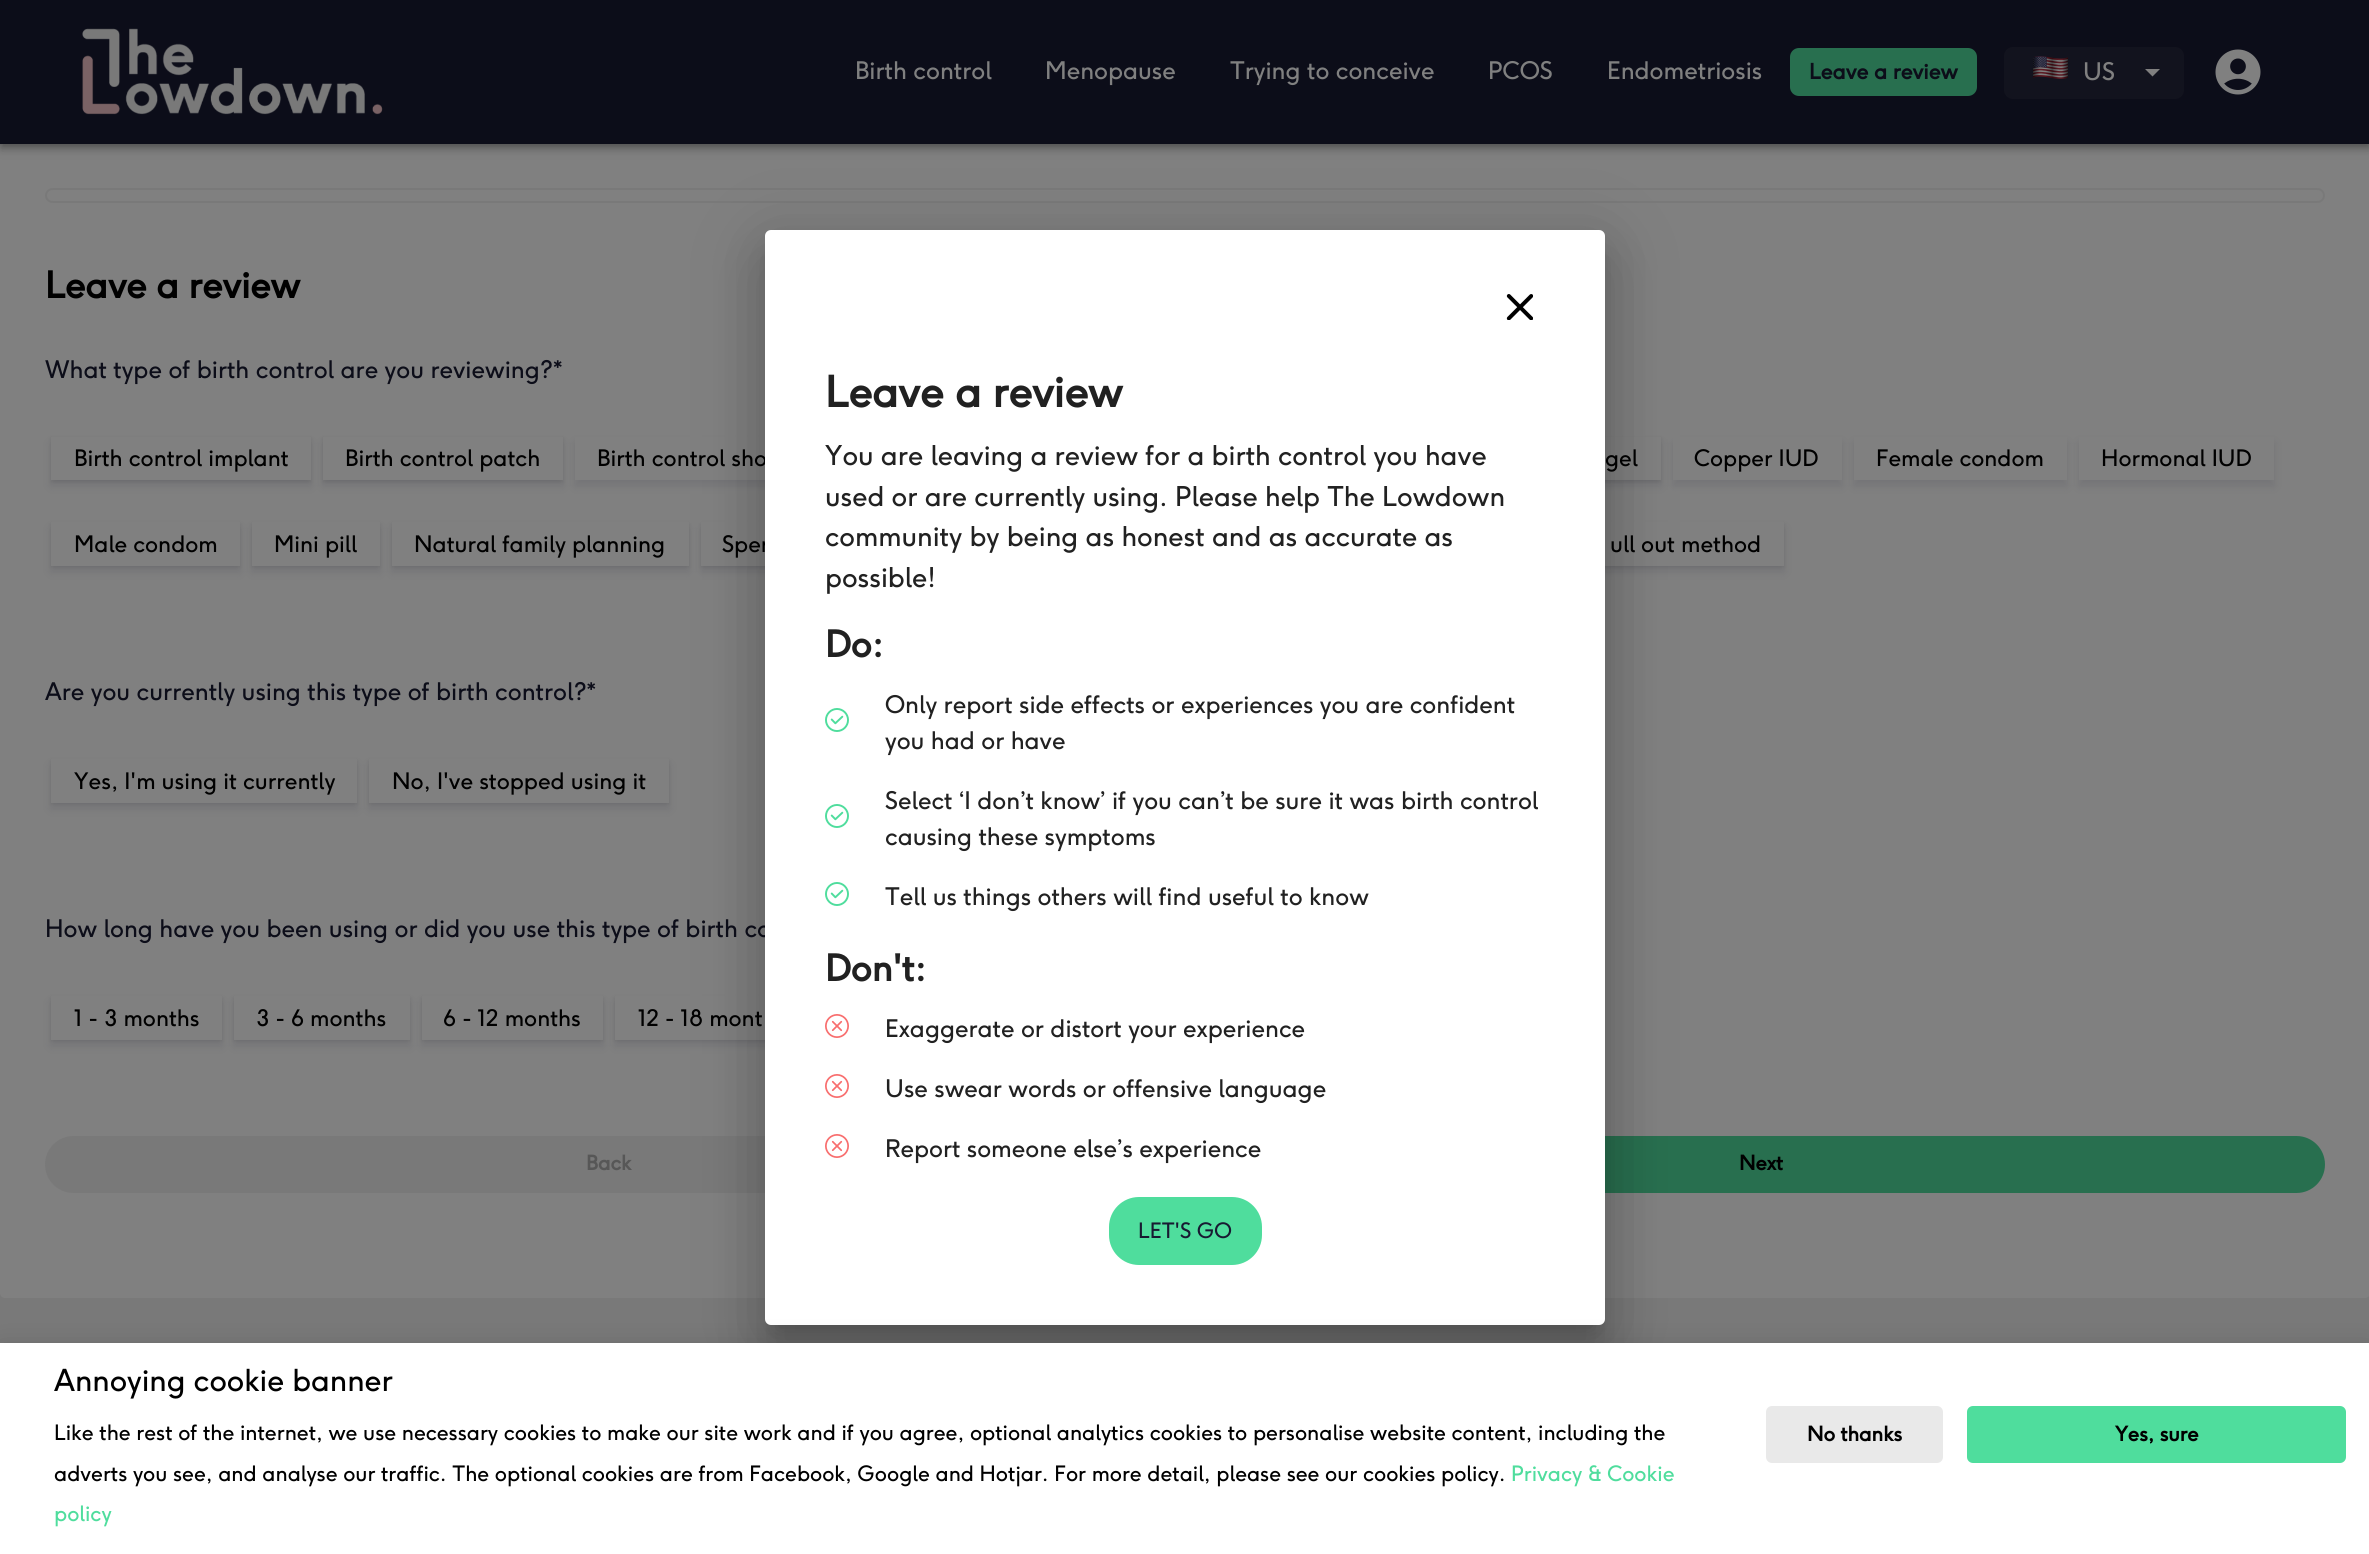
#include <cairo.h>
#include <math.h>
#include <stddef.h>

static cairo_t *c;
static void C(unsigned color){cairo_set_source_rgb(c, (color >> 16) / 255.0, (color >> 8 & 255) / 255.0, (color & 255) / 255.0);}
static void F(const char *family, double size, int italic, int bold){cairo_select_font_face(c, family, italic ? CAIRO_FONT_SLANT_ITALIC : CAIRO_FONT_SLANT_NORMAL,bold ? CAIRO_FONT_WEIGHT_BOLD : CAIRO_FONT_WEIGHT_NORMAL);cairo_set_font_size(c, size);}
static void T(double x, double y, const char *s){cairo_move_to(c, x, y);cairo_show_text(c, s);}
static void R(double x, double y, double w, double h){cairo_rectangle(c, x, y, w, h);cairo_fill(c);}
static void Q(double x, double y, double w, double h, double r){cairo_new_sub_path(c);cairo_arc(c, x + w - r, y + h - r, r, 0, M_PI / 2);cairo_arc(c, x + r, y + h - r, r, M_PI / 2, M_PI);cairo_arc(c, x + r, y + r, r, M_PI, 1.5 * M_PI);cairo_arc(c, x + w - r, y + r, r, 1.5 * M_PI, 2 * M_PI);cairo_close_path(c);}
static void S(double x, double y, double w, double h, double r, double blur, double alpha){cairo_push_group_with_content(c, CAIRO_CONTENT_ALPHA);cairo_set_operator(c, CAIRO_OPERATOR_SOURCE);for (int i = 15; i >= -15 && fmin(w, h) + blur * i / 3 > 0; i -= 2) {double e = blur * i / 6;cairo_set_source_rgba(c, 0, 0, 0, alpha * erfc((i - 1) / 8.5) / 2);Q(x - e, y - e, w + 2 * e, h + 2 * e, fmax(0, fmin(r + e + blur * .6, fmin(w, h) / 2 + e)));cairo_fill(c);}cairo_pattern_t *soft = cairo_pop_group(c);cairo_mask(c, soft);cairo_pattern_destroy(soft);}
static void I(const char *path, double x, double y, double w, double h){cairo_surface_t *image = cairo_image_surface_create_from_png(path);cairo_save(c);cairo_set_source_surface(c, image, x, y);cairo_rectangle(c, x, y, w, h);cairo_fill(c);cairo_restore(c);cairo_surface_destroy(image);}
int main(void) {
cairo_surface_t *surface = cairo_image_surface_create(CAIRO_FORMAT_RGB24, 2369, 1554);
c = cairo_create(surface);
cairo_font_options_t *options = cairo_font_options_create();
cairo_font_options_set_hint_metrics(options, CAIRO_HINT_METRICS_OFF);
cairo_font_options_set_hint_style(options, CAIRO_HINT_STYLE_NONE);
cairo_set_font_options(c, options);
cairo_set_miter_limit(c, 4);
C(0x797979);
cairo_paint(c);
C(0x808080);
Q(0,143,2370,1155,5);
cairo_fill(c);
C(0x000000);
S(0,2,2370,144,0,7.5,.12);
S(0,6,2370,144,0,4,.14);
S(2,5,2367,141,0,3,.2);
C(0x0c0d19);
R(0,0,2369,144);
I("1.png",82,28,301,87);
F("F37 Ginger",24,0,0);
C(0x808080);
T(855,79,"Birth control");
T(1045,79,"Menopause");
T(1230,79,"Trying to conceive");
T(1488,79,"PCOS");
T(1607,79,"Endometriosis");
C(0x286f4f);
Q(1790,48,187,48,9);
cairo_fill(c);
F("F37 Ginger",21,0,1);
C(0x0c0d19);
T(1809,79,"Leave a review");
C(0x12131e);
Q(2004,47,180,52,9);
cairo_fill(c);
I("2.png",2033,56,35,23);
F("F37 Ginger",24,0,0);
C(0x808080);
T(2083,80,"US");
cairo_new_path(c);
cairo_move_to(c,2145,69);
cairo_line_to(c,2152.5,76.5);
cairo_line_to(c,2160,69);
cairo_close_path(c);
cairo_fill(c);
I("3.png",2215,49,46,46);
Q(46,189,2278,13,6.5);
C(0x797979);
cairo_stroke(c);
F("F37 Ginger",36,0,1);
C(0x000000);
T(45,298,"Leave a review");
F("F37 Ginger",24,0,0);
C(0x0c0d19);
T(45,378,"What type of birth control are you reviewing?*");
C(0x000000);
S(51,438,260,44,0,2,.08);
C(0x19192f);
S(51,443,260,43,0,4.5,.11);
C(0x808080);
R(51,437,260,43);
F("F37 Ginger",22.5,0,0);
C(0x000000);
T(74,466,"Birth control implant");
C(0x000000);
S(323,438,240,44,0,2,.08);
C(0x19192f);
S(323,443,240,43,0,4.5,.11);
C(0x808080);
R(323,437,240,43);
C(0x000000);
T(345,466,"Birth control patch");
cairo_save(c);
cairo_set_fill_rule(c,CAIRO_FILL_RULE_EVEN_ODD);
cairo_new_path(c);
cairo_move_to(c,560,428);
cairo_line_to(c,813,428);
cairo_line_to(c,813,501);
cairo_line_to(c,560,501);
cairo_close_path(c);
cairo_move_to(c,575,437);
cairo_line_to(c,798,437);
cairo_line_to(c,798,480);
cairo_line_to(c,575,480);
cairo_close_path(c);
cairo_clip(c);
C(0x19192f);
S(575,443,223,43,0,4.5,.11);
cairo_restore(c);
T(597,466,"Birth control sho");
C(0x000000);
S(1427,438,234,44,0,2,.08);
C(0x19192f);
S(1427,443,234,43,0,4.5,.11);
C(0x808080);
R(1605,437,56,43);
C(0x000000);
T(1605,466,"gel");
cairo_save(c);
cairo_set_fill_rule(c,CAIRO_FILL_RULE_EVEN_ODD);
cairo_new_path(c);
cairo_move_to(c,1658,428);
cairo_line_to(c,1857,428);
cairo_line_to(c,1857,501);
cairo_line_to(c,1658,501);
cairo_close_path(c);
cairo_move_to(c,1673,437);
cairo_line_to(c,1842,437);
cairo_line_to(c,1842,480);
cairo_line_to(c,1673,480);
cairo_close_path(c);
cairo_clip(c);
C(0x19192f);
S(1673,443,169,43,0,4.5,.11);
cairo_restore(c);
T(1694,466,"Copper IUD");
cairo_save(c);
cairo_set_fill_rule(c,CAIRO_FILL_RULE_EVEN_ODD);
cairo_new_path(c);
cairo_move_to(c,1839,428);
cairo_line_to(c,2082,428);
cairo_line_to(c,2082,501);
cairo_line_to(c,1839,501);
cairo_close_path(c);
cairo_move_to(c,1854,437);
cairo_line_to(c,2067,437);
cairo_line_to(c,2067,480);
cairo_line_to(c,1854,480);
cairo_close_path(c);
cairo_clip(c);
C(0x19192f);
S(1854,443,213,43,0,4.5,.11);
cairo_restore(c);
T(1876,466,"Female condom");
cairo_save(c);
cairo_set_fill_rule(c,CAIRO_FILL_RULE_EVEN_ODD);
cairo_new_path(c);
cairo_move_to(c,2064,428);
cairo_line_to(c,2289,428);
cairo_line_to(c,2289,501);
cairo_line_to(c,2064,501);
cairo_close_path(c);
cairo_move_to(c,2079,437);
cairo_line_to(c,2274,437);
cairo_line_to(c,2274,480);
cairo_line_to(c,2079,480);
cairo_close_path(c);
cairo_clip(c);
C(0x19192f);
S(2079,443,195,43,0,4.5,.11);
cairo_restore(c);
T(2101,466,"Hormonal IUD");
C(0x000000);
S(51,524,189,43,0,2,.08);
C(0x19192f);
S(51,528,189,44,0,4.5,.11);
C(0x808080);
R(51,522,189,44);
C(0x000000);
T(74,552,"Male condom");
C(0x000000);
S(252,524,128,43,0,2,.08);
C(0x19192f);
S(252,528,128,44,0,4.5,.11);
C(0x808080);
R(252,522,128,44);
C(0x000000);
T(274,552,"Mini pill");
C(0x000000);
S(392,524,297,43,0,2,.08);
C(0x19192f);
S(392,528,297,44,0,4.5,.11);
C(0x808080);
R(392,522,297,44);
C(0x000000);
T(414,552,"Natural family planning");
C(0x000000);
S(701,524,162,43,0,2,.08);
C(0x19192f);
S(701,528,162,44,0,4.5,.11);
C(0x808080);
R(701,522,64,44);
C(0x000000);
T(722,552,"Sper");
C(0x000000);
S(1415,524,369,43,0,2,.08);
C(0x19192f);
S(1415,528,369,44,0,4.5,.11);
C(0x808080);
R(1605,522,179,44);
C(0x000000);
T(1610,552,"ull out method");
F("F37 Ginger",24,0,0);
C(0x0c0d19);
T(45,700,"Are you currently using this type of birth control?*");
C(0x000000);
S(51,761,306,43,0,2,.08);
C(0x19192f);
S(51,765,306,44,0,4.5,.11);
C(0x808080);
R(51,759,306,44);
F("F37 Ginger",22.5,0,0);
C(0x000000);
T(74,789,"Yes, I'm using it currently");
C(0x000000);
S(369,761,300,43,0,2,.08);
C(0x19192f);
S(369,765,300,44,0,4.5,.11);
C(0x808080);
R(369,759,300,44);
C(0x000000);
T(392,789,"No, I've stopped using it");
F("F37 Ginger",24,0,0);
C(0x0c0d19);
T(45,937,"How long have you been using or did you use this type of birth co");
C(0x000000);
S(51,998,171,43,0,2,.08);
C(0x19192f);
S(51,1002,171,44,0,4.5,.11);
C(0x808080);
R(51,996,171,44);
F("F37 Ginger",22.5,0,0);
C(0x000000);
T(74,1026,"1 - 3 months");
C(0x000000);
S(234,998,176,43,0,2,.08);
C(0x19192f);
S(234,1002,176,44,0,4.5,.11);
C(0x808080);
R(234,996,176,44);
C(0x000000);
T(256,1026,"3 - 6 months");
C(0x000000);
S(422,998,181,43,0,2,.08);
C(0x19192f);
S(422,1002,181,44,0,4.5,.11);
C(0x808080);
R(422,996,181,44);
C(0x000000);
T(443,1026,"6 - 12 months");
C(0x000000);
S(615,998,194,43,0,2,.08);
C(0x19192f);
S(615,1002,194,44,0,4.5,.11);
C(0x808080);
R(615,996,150,44);
C(0x000000);
T(638,1026,"12 - 18 mont");
C(0x797979);
Q(45,1136,1128,57,28.5);
cairo_fill(c);
F("F37 Ginger",20,0,1);
C(0x575757);
T(586,1170,"Back");
C(0x286f4f);
Q(1197,1136,1128,57,28.5);
cairo_fill(c);
C(0x000000);
T(1739,1170,"Next");
C(0x000000);
S(753,231,864,1119,18,34.5,.12);
S(761,261,849,1104,11,28.5,.14);
S(776,257,819,1074,0,11,.2);
C(0xffffff);
Q(765,230,840,1095,6);
cairo_fill(c);
C(0x000000);
S(0,1344,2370,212,0,13.5,.12);
C(0xffffff);
R(0,1343,2369,211);
F("F37 Ginger",30,0,0);
C(0x000000);
T(54,1391,"Annoying cookie banner");
F("F37 Ginger",21,0,0);
T(54,1440,"Like the rest of the internet, we use necessary cookies to make our site work and if you agree, optional analytics cookies to personalise website content, including the");
T(54,1481,"adverts you see, and analyse our traffic. The optional cookies are from Facebook, Google and Hotjar. For more detail, please see our cookies policy.");
C(0x4fdd9d);
T(1511,1481,"Privacy & Cookie");
T(54,1521,"policy");
C(0xe9e9e9);
Q(1766,1406,177,57,6);
cairo_fill(c);
F("F37 Ginger",20,0,1);
C(0x000000);
T(1807,1441,"No thanks");
C(0x4fdd9d);
Q(1967,1406,379,57,6);
cairo_fill(c);
C(0x000000);
T(2115,1441,"Yes, sure");
I("4.png",1506,294,27,26);
F("F37 Ginger",42,0,1);
C(0x212121);
T(825,407,"Leave a review");
F("F37 Ginger",27,0,0);
T(825,465,"You are leaving a review for a birth control you have");
T(825,506,"used or are currently using. Please help The Lowdown");
T(825,546,"community by being as honest and as accurate as");
T(825,587,"possible!");
F("F37 Ginger",36,0,1);
T(825,657,"Do:");
I("5.png",825,708,24,24);
F("F37 Ginger",24,0,0);
T(885,713,"Only report side effects or experiences you are confident");
T(885,749,"you had or have");
I("5.png",825,804,24,24);
T(885,809,"Select ‘I don’t know’ if you can’t be sure it was birth control");
T(885,845,"causing these symptoms");
I("5.png",825,882,24,24);
T(885,905,"Tell us things others will find useful to know");
F("F37 Ginger",36,0,1);
T(825,981,"Don't:");
I("6.png",825,1014,24,24);
F("F37 Ginger",24,0,0);
T(885,1037,"Exaggerate or distort your experience");
I("6.png",825,1074,24,24);
T(885,1097,"Use swear words or offensive language");
I("6.png",825,1134,24,24);
T(885,1157,"Report someone else’s experience");
C(0x4fdd9d);
Q(1109,1197,153,68,30);
cairo_fill(c);
F("F37 Ginger",21,0,0);
C(0x181a32);
T(1138,1238,"LET'S GO");
cairo_surface_write_to_png(surface, "o.png");
cairo_font_options_destroy(options);
cairo_destroy(c);
cairo_surface_destroy(surface);
return 0;
}
